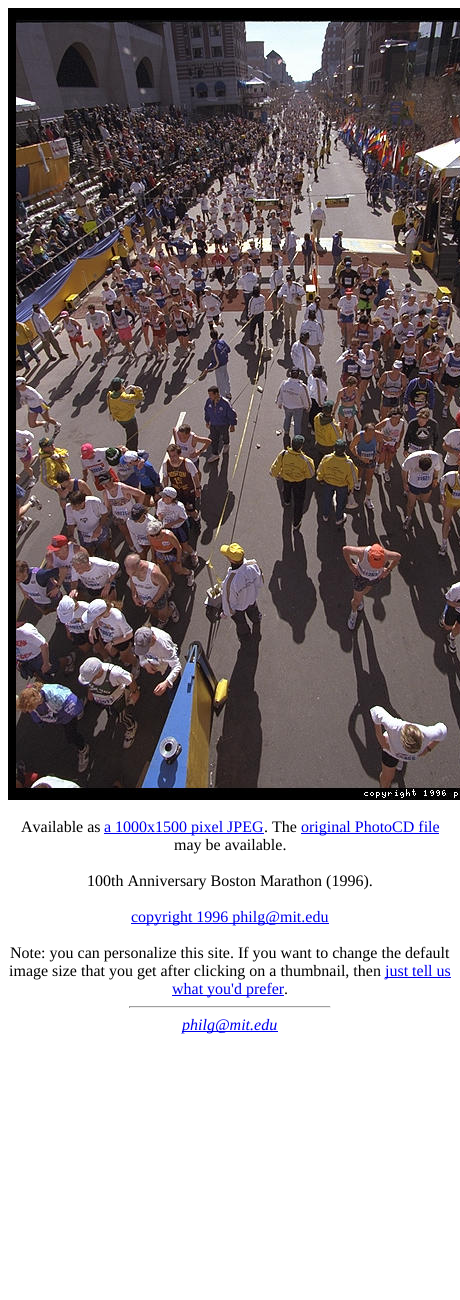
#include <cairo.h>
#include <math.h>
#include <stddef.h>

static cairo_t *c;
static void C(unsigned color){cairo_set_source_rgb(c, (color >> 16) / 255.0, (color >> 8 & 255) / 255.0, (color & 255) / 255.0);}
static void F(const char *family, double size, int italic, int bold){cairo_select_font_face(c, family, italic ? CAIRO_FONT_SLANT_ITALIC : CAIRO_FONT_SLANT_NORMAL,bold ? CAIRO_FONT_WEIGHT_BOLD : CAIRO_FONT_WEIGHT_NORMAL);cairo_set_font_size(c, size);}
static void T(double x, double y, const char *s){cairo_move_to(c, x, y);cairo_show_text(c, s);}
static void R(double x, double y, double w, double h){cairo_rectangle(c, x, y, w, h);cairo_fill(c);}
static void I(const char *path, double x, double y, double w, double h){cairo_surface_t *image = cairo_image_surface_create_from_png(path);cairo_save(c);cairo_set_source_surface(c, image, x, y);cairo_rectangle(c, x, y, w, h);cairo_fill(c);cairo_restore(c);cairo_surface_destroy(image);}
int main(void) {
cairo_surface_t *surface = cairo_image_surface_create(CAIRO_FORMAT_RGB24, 460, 1300);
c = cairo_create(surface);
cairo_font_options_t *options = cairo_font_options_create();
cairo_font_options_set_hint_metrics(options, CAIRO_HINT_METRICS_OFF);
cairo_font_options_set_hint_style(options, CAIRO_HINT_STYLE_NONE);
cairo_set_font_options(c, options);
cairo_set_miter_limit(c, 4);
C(0xffffff);
cairo_paint(c);
I("1.png",8,8,452,792);
F("Liberation Serif",16,0,0);
C(0x000000);
T(21,832,"Available as");
C(0x0000ee);
R(104,833,160,1);
T(104,832,"a 1000x1500 pixel JPEG");
C(0x000000);
T(264,832,". The");
C(0x0000ee);
R(301,833,138,1);
T(301,832,"original PhotoCD file");
C(0x000000);
T(174,850,"may be available.");
T(87,886,"100th Anniversary Boston Marathon (1996).");
C(0x0000ee);
R(131,923,198,1);
T(131,922,"copyright 1996 philg@mit.edu");
C(0x000000);
T(10,958,"Note: you can personalize this site. If you want to change the default");
T(9,976,"image size that you get after clicking on a thumbnail, then");
C(0x0000ee);
R(385,977,66,1);
T(385,976,"just tell us");
R(172,995,112,1);
T(172,994,"what you'd prefer");
C(0x000000);
T(284,994,".");
C(0x9f9f9f);
R(129,1006,202,1);
C(0xeeeeee);
R(330,1006,1,2);
R(129,1007,202,1);
C(0x9f9f9f);
R(129,1006,1,2);
C(0x0000ee);
R(182,1031,96,1);
F("Liberation Serif",16,1,0);
T(182,1030,"philg@mit.edu");
cairo_surface_write_to_png(surface, "o.png");
cairo_font_options_destroy(options);
cairo_destroy(c);
cairo_surface_destroy(surface);
return 0;
}
